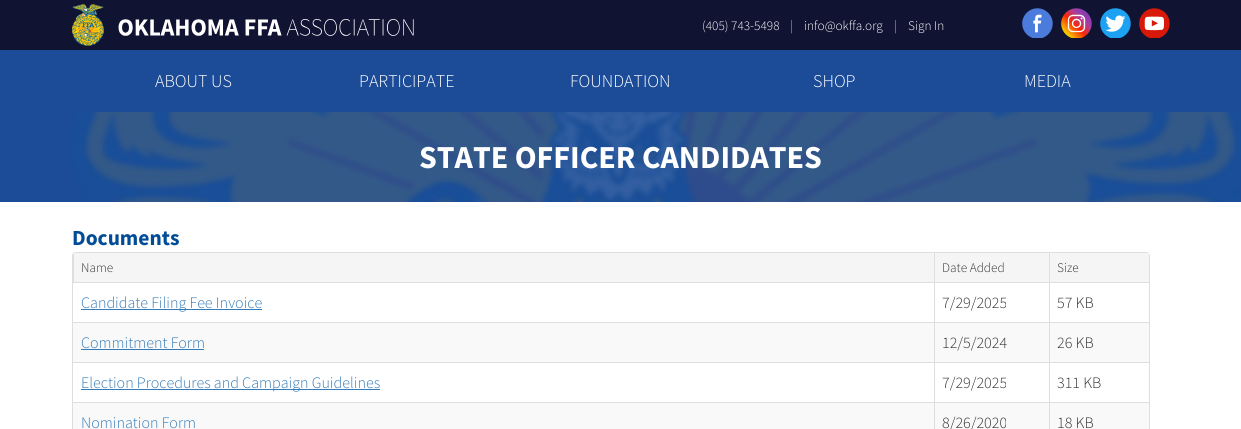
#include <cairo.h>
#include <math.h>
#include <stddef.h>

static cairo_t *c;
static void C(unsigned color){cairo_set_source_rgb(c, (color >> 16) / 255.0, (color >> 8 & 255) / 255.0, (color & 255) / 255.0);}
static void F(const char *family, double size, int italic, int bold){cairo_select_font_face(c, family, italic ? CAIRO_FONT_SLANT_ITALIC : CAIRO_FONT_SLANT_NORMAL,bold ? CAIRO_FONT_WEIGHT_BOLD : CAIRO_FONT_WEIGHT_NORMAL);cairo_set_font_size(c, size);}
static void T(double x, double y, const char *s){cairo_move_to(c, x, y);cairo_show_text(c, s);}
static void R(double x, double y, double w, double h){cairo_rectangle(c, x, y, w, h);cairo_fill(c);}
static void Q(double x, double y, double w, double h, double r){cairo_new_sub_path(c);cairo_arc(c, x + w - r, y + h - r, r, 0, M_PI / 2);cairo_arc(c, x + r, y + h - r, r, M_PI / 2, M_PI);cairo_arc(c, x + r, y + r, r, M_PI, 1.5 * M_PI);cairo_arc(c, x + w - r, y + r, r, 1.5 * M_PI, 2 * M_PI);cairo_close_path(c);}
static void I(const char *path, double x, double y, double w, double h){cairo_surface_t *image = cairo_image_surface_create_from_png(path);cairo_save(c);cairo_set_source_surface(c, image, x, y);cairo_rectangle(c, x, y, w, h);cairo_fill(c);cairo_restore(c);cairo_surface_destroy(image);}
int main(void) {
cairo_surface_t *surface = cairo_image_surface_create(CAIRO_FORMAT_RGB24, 1241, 429);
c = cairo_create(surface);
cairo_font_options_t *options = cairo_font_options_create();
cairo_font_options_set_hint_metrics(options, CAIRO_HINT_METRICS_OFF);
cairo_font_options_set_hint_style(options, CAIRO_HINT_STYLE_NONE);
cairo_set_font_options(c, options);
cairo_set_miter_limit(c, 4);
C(0x101432);
cairo_paint(c);
I("1.png",72,4,342,42);
F("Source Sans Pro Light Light",13.25,0,0);
C(0xffffff);
T(702,30,"(405) 743-5498");
C(0xffcd00);
T(790,30,"|");
C(0xffffff);
T(804,30,"info@okffa.org");
C(0xffcd00);
T(894,30,"|");
C(0xffffff);
T(908,30,"Sign In");
I("2.png",1022,8,31,30);
I("3.png",1061,8,31,30);
I("4.png",1100,8,31,30);
I("5.png",1139,8,31,30);
C(0x1c4c97);
R(0,50,1241,62);
F("Source Sans Pro Light Light",18,0,0);
C(0xffffff);
T(155,87,"ABOUT US");
T(359,87,"PARTICIPATE");
T(570,87,"FOUNDATION");
T(813,87,"SHOP");
T(1024,87,"MEDIA");
I("6.png",0,112,1241,90);
F("Source Sans Pro",32,0,1);
T(419,168,"STATE OFFICER CANDIDATES");
R(0,202,1241,227);
F("Source Sans Pro",21.5,0,1);
C(0x004c97);
T(72,245,"Documents");
Q(72.5,252.5,1077,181,3.5);
C(0xdedede);
cairo_set_line_width(c,1);
cairo_stroke(c);
C(0xf5f5f5);
R(74,253,860,29);
C(0xdedede);
R(73,282,1076,1);
R(73,253,1,30);
F("Source Sans Pro Light Light",13.25,0,0);
C(0x333333);
T(81,272,"Name");
C(0xf5f5f5);
R(935,253,114,29);
C(0xdedede);
R(934,253,1,30);
C(0x333333);
T(942,272,"Date Added");
C(0xf5f5f5);
R(1050,253,99,29);
C(0xdedede);
R(1049,253,1,30);
C(0x333333);
T(1057,272,"Size");
C(0xdedede);
R(73,322,1076,1);
C(0x337ab7);
R(81,309,181,1);
F("Source Sans Pro Light Light",16,0,0);
T(81,308,"Candidate Filing Fee Invoice");
C(0xdedede);
R(934,283,1,40);
C(0x333333);
T(942,308,"7/29/2025");
C(0xdedede);
R(1049,283,1,40);
C(0x333333);
T(1057,308,"57 KB");
C(0xf9f9f9);
R(73,323,861,39);
C(0xdedede);
R(73,362,1076,1);
C(0x337ab7);
T(81,348,"Commitment Form");
R(81,349,123,1);
C(0xf9f9f9);
R(935,323,114,39);
C(0xdedede);
R(934,323,1,40);
C(0x333333);
T(942,348,"12/5/2024");
C(0xf9f9f9);
R(1050,323,99,39);
C(0xdedede);
R(1049,323,1,40);
C(0x333333);
T(1057,348,"26 KB");
C(0xdedede);
R(73,402,1076,1);
C(0x337ab7);
R(81,389,299,1);
T(81,388,"Election Procedures and Campaign Guidelines");
C(0xdedede);
R(934,363,1,66);
C(0x333333);
T(942,388,"7/29/2025");
C(0xdedede);
R(1049,363,1,66);
C(0x333333);
T(1057,388,"311 KB");
C(0xf9f9f9);
R(73,403,861,26);
C(0x337ab7);
T(81,428,"Nomination Form");
C(0xf9f9f9);
R(935,403,114,26);
C(0x333333);
T(942,428,"8/26/2020");
C(0xf9f9f9);
R(1050,403,99,26);
C(0x333333);
T(1057,428,"18 KB");
cairo_surface_write_to_png(surface, "o.png");
cairo_font_options_destroy(options);
cairo_destroy(c);
cairo_surface_destroy(surface);
return 0;
}
